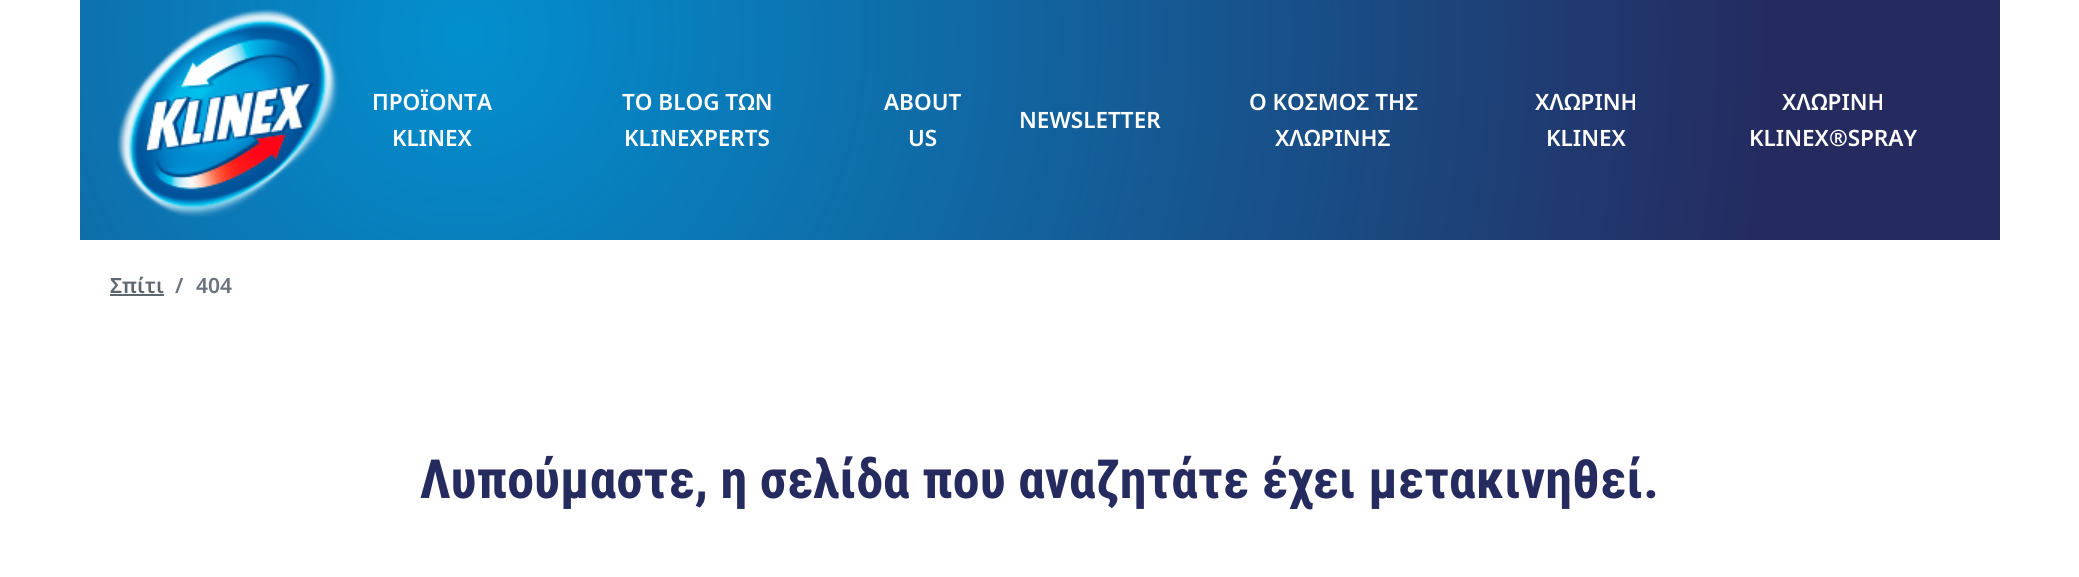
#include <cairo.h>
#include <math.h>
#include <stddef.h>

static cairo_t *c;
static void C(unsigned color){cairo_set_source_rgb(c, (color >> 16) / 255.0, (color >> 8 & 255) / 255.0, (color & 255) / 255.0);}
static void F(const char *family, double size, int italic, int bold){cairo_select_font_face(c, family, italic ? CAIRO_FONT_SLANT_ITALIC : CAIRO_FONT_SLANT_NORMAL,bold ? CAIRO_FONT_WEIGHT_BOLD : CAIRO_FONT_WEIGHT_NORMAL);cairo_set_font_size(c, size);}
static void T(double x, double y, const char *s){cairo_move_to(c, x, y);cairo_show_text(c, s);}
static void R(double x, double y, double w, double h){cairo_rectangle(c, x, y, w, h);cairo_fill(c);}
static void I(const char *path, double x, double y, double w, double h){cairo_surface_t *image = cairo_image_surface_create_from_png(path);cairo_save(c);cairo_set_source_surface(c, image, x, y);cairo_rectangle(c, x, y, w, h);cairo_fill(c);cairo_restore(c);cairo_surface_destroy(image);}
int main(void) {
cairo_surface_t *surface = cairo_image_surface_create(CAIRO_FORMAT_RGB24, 2079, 577);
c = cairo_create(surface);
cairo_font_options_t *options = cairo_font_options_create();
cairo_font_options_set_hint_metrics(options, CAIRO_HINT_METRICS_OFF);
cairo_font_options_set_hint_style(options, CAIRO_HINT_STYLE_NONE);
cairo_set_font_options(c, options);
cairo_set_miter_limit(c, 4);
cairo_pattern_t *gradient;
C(0xffffff);
cairo_paint(c);
gradient = cairo_pattern_create_radial(464,36,0,464,36,1549);
cairo_pattern_add_color_stop_rgba(gradient,0,0.012,0.561,0.812,1);
cairo_pattern_add_color_stop_rgba(gradient,.85,0.145,0.165,0.373,1);
cairo_set_source(c,gradient);
cairo_pattern_destroy(gradient);
R(80,0,1920,240);
I("1.png",117,9,222,209);
F("Noto Sans SemiBold",22.5,0,0);
C(0xffffff);
T(372,110,"ΠΡΟΪΟΝΤΑ");
T(392,146,"KLINEX");
T(622,110,"ΤΟ BLOG ΤΩΝ");
T(624,146,"KLINEXPERTS");
T(884,110,"ABOUT");
T(908,146,"US");
T(1019,128,"NEWSLETTER");
T(1249,110,"Ο ΚΟΣΜΟΣ ΤΗΣ");
T(1275,146,"ΧΛΩΡΙΝΗΣ");
T(1535,110,"ΧΛΩΡΙΝΗ");
T(1546,146,"KLINEX");
T(1782,110,"ΧΛΩΡΙΝΗ");
T(1749,146,"KLINEX®SPRAY");
F("Noto Sans SemiBold",21,0,0);
C(0x5d6770);
T(110,293,"Σπίτι");
R(110,294,54,2);
C(0x6b7280);
T(175,293,"/");
T(196,293,"404");
F("Roboto Condensed",54,0,1);
C(0x252a5f);
T(420,498,"Λυπούμαστε, η σελίδα που αναζητάτε έχει μετακινηθεί.");
cairo_surface_write_to_png(surface, "o.png");
cairo_font_options_destroy(options);
cairo_destroy(c);
cairo_surface_destroy(surface);
return 0;
}
